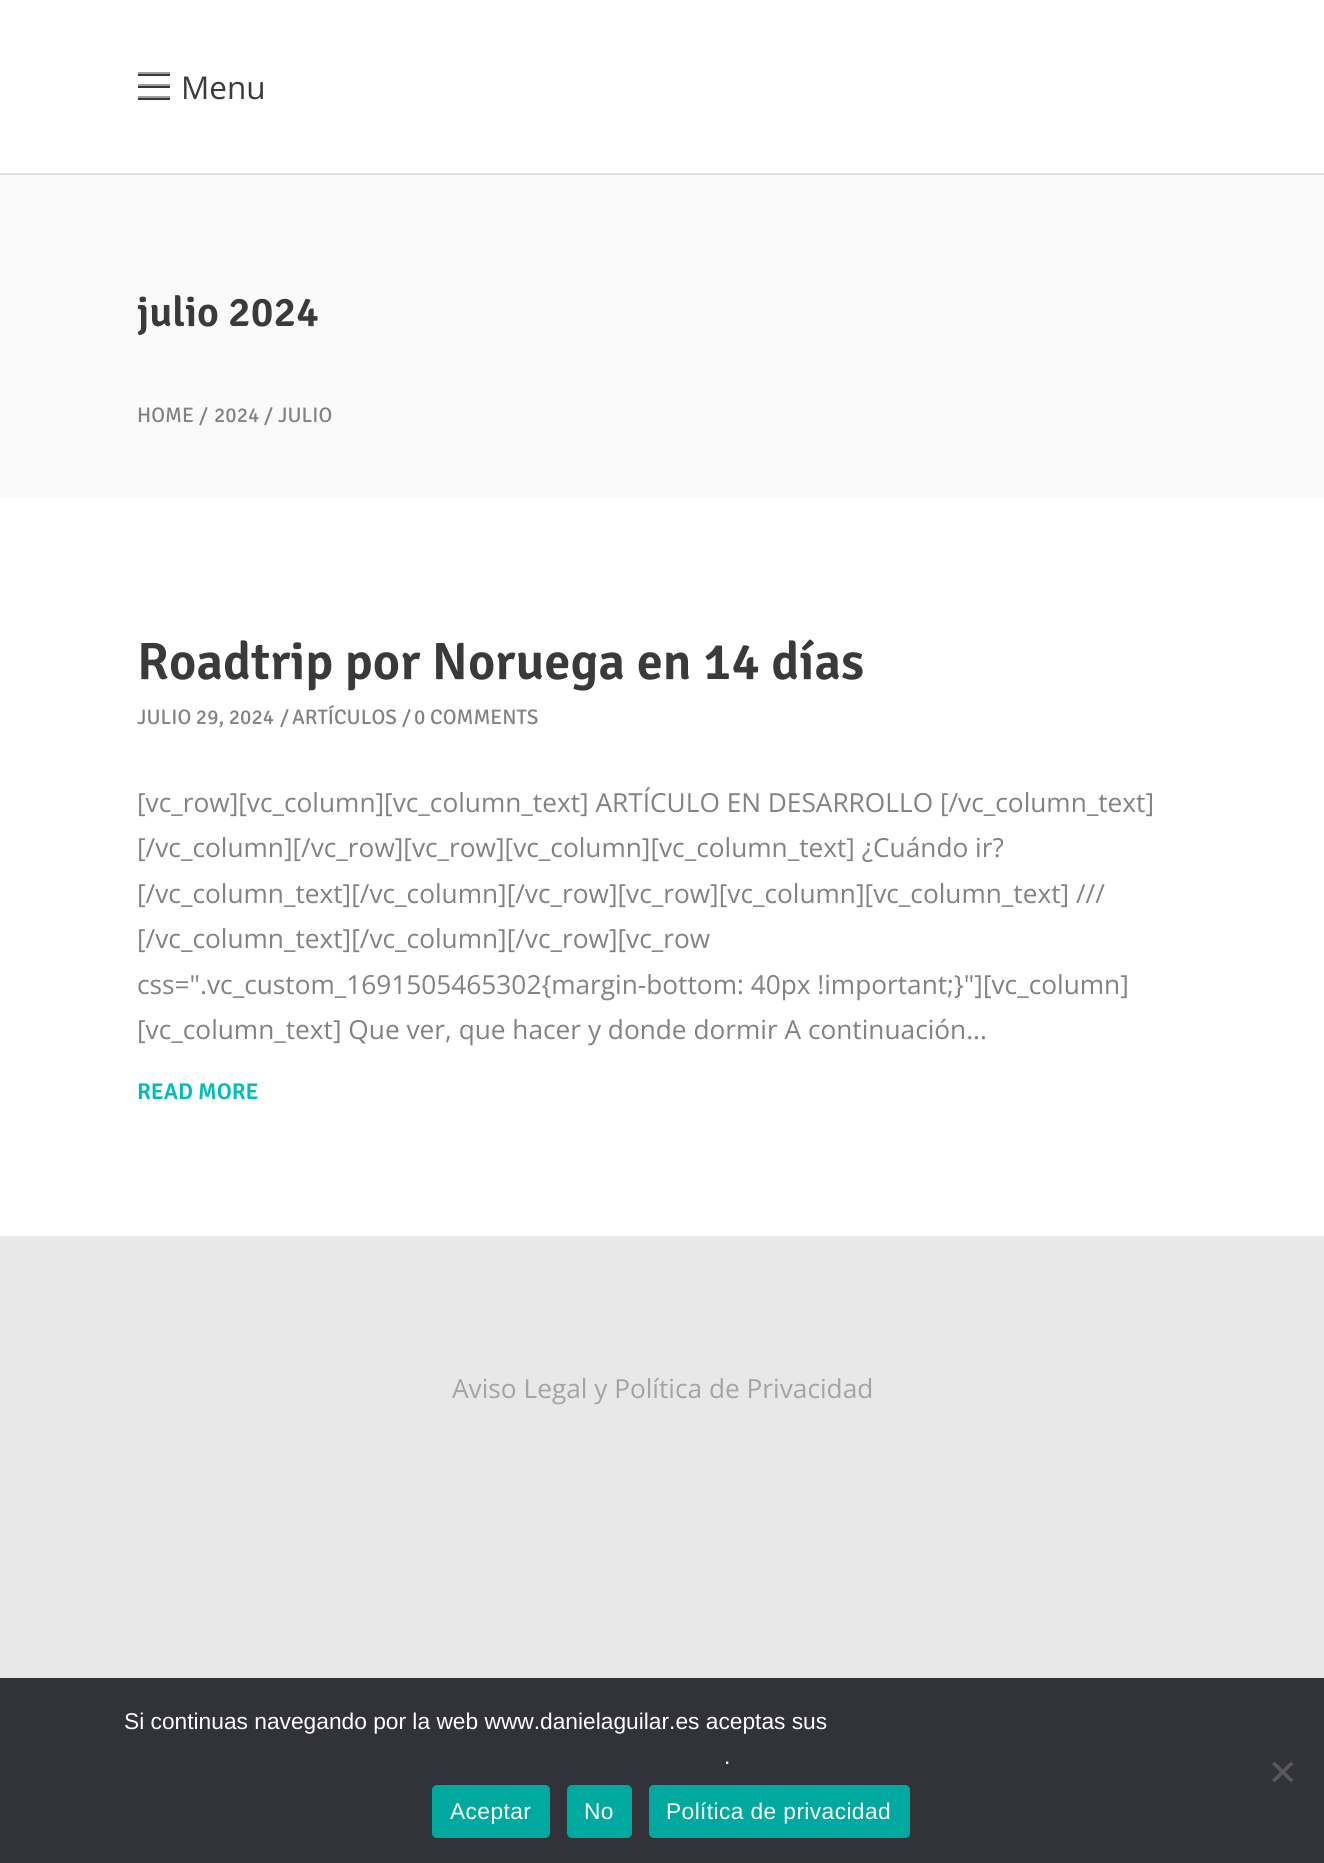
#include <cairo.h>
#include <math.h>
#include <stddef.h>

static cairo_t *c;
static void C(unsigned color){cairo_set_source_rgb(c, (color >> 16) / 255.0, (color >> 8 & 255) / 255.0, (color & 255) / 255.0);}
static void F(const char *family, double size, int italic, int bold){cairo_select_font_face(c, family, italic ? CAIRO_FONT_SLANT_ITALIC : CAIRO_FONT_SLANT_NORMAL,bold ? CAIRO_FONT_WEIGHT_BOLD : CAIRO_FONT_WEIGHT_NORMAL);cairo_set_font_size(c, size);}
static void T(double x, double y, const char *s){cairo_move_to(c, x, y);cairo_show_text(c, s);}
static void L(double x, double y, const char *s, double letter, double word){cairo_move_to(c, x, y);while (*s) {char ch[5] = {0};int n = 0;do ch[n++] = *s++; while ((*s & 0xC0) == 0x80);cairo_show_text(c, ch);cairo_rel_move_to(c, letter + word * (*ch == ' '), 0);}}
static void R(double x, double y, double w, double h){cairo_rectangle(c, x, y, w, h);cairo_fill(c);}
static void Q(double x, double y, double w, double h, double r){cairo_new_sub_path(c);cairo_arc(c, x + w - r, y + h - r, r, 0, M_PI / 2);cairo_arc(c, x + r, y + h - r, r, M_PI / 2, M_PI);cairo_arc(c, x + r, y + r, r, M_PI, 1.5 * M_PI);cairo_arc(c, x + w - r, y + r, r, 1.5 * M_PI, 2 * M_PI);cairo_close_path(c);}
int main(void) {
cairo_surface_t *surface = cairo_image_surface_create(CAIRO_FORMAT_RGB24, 1324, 1863);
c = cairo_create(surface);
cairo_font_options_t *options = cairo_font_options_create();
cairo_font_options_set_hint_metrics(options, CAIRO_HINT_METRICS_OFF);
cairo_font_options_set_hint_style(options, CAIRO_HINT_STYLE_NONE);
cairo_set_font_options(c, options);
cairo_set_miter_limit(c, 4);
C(0xffffff);
cairo_paint(c);
C(0xe1e1e1);
R(0,173,1324,2);
C(0x3a3a3a);
R(138,74,32,2);
C(0x9d9d9d);
R(138,72,32,2);
C(0x3a3a3a);
R(138,86,32,2);
C(0x9d9d9d);
R(138,84,32,2);
C(0x3a3a3a);
R(138,98,32,2);
C(0x9d9d9d);
R(138,96,32,2);
F("Open Sans",31.5,0,0);
C(0x3a3a3a);
T(181,99,"Menu");
C(0xfafafa);
R(0,175,1324,322);
F("Signika SemiBold",42,0,0);
C(0x3a3a3a);
T(137,326,"julio 2024");
F("Signika",21,0,0);
C(0x808285);
T(137,422,"HOME");
T(199,422,"/");
T(214,422,"2024");
T(264,422,"/");
T(278,422,"JULIO");
F("Signika SemiBold",52.5,0,0);
C(0x3a3a3a);
T(137,679,"Roadtrip por Noruega en 14 días");
F("Signika",21,0,0);
C(0x808285);
T(137,724,"JULIO 29, 2024");
T(280,724,"/");
T(292,724,"ARTÍCULOS");
T(402,724,"/");
T(414,724,"0 COMMENTS");
F("Open Sans",26.25,0,0);
T(137,812,"[vc_row][vc_column][vc_column_text] ARTÍCULO EN DESARROLLO [/vc_column_text]");
T(137,857,"[/vc_column][/vc_row][vc_row][vc_column][vc_column_text] ¿Cuándo ir?");
T(137,903,"[/vc_column_text][/vc_column][/vc_row][vc_row][vc_column][vc_column_text] ///");
T(137,948,"[/vc_column_text][/vc_column][/vc_row][vc_row");
T(137,994,"css=\".vc_custom_1691505465302{margin-bottom: 40px !important;}\"][vc_column]");
T(137,1039,"[vc_column_text] Que ver, que hacer y donde dormir A continuación...");
F("Signika SemiBold",22.75,0,0);
C(0x00bdbb);
T(137,1099,"READ MORE");
C(0xe8e8e8);
R(0,1236,1324,442);
F("Open Sans",26.25,0,0);
C(0xa4a4a4);
T(452,1398,"Aviso Legal y Política de Privacidad");
C(0x32323a);
R(0,1678,1324,185);
F("Liberation Sans",22.75,0,0);
C(0xffffff);
T(124,1729,"Si continuas navegando por la web www.danielaguilar.es aceptas sus");
T(724,1764,".");
C(0x59595d);
cairo_new_path(c);
cairo_move_to(c,1291,1761.5);
cairo_line_to(c,1293.5,1764);
cairo_line_to(c,1274.5,1782.5);
cairo_line_to(c,1272,1780);
cairo_close_path(c);
cairo_fill(c);
cairo_new_path(c);
cairo_move_to(c,1272,1764);
cairo_line_to(c,1274.5,1761.5);
cairo_line_to(c,1293.5,1780);
cairo_line_to(c,1291,1782.5);
cairo_close_path(c);
cairo_fill(c);
C(0x00a99d);
Q(432,1785,118,53,5);
cairo_fill(c);
C(0xffffff);
L(450,1819,"Aceptar",.4,0);
C(0x00a99d);
Q(567,1785,65,53,5);
cairo_fill(c);
C(0xffffff);
L(584,1819,"No",.4,0);
C(0x00a99d);
Q(649,1785,261,53,5);
cairo_fill(c);
C(0xffffff);
L(666,1819,"Política de privacidad",.4,0);
cairo_surface_write_to_png(surface, "o.png");
cairo_font_options_destroy(options);
cairo_destroy(c);
cairo_surface_destroy(surface);
return 0;
}
